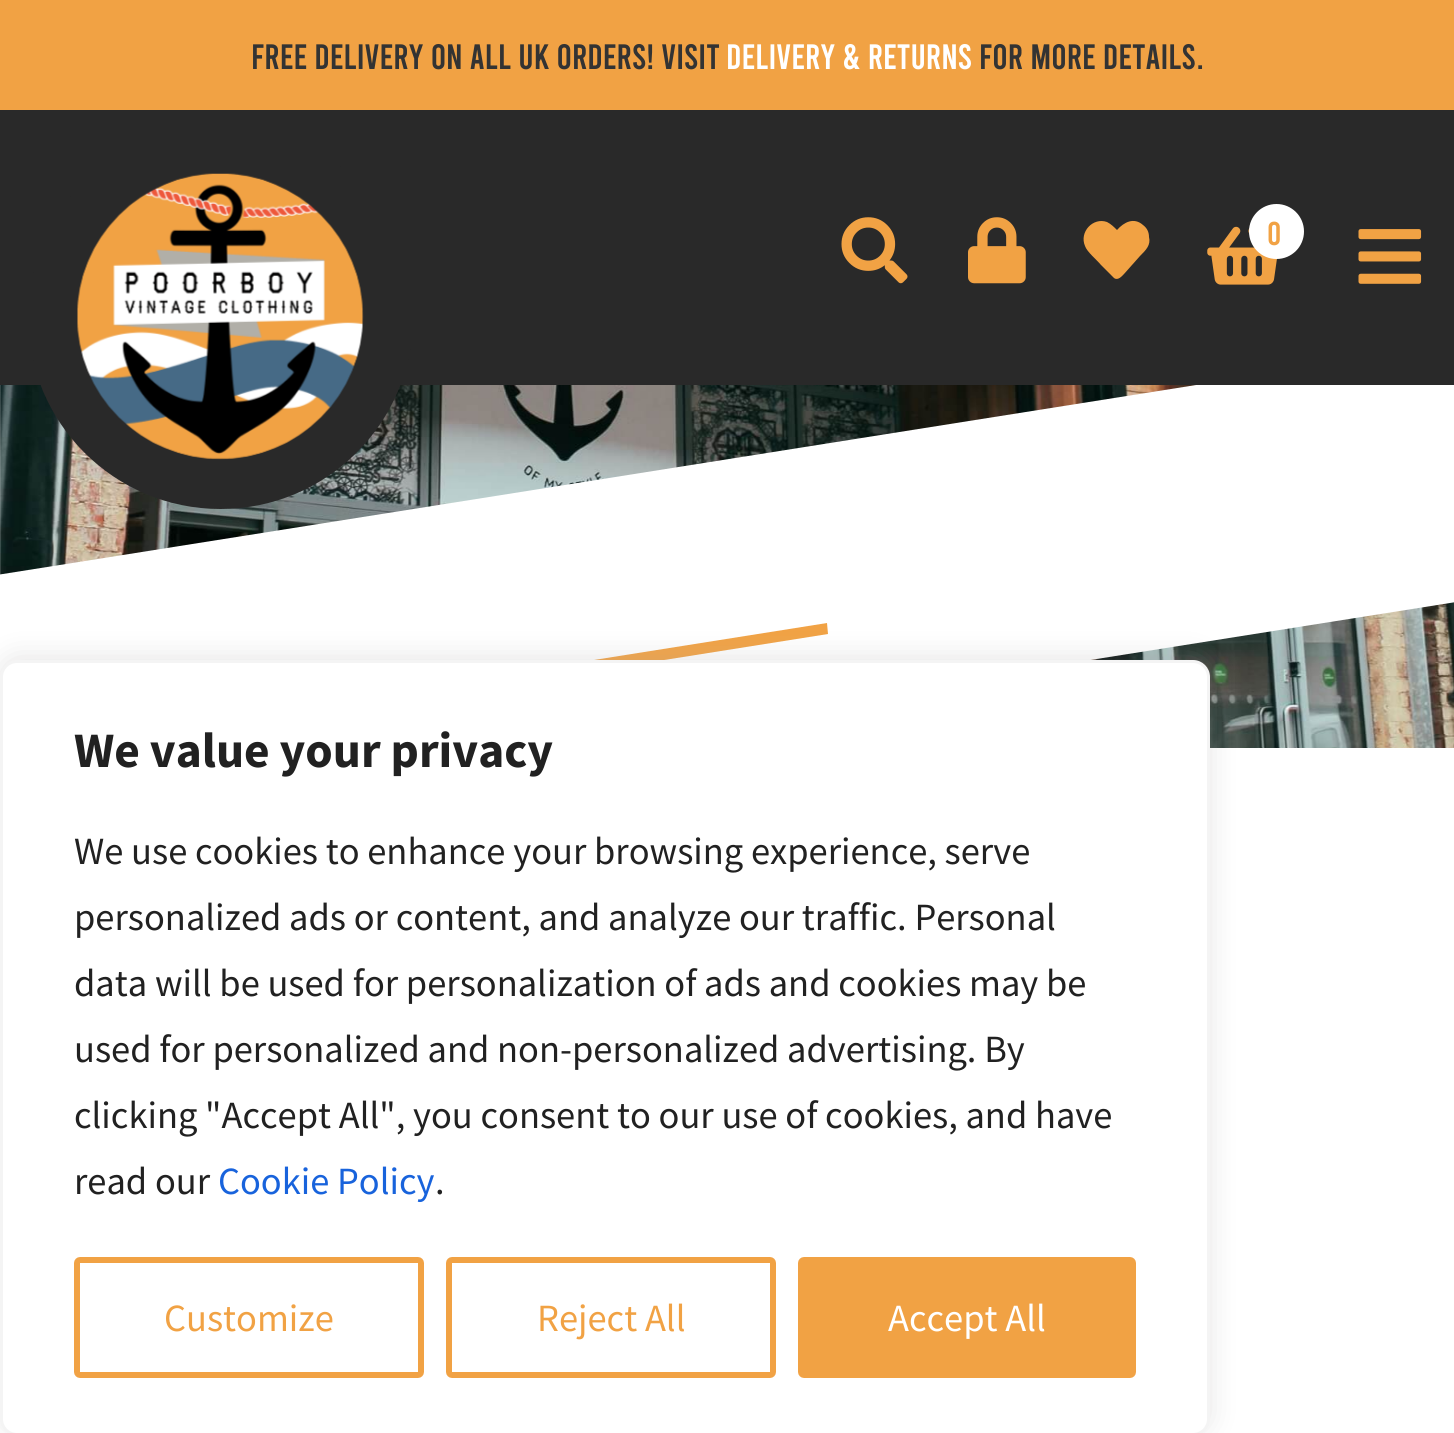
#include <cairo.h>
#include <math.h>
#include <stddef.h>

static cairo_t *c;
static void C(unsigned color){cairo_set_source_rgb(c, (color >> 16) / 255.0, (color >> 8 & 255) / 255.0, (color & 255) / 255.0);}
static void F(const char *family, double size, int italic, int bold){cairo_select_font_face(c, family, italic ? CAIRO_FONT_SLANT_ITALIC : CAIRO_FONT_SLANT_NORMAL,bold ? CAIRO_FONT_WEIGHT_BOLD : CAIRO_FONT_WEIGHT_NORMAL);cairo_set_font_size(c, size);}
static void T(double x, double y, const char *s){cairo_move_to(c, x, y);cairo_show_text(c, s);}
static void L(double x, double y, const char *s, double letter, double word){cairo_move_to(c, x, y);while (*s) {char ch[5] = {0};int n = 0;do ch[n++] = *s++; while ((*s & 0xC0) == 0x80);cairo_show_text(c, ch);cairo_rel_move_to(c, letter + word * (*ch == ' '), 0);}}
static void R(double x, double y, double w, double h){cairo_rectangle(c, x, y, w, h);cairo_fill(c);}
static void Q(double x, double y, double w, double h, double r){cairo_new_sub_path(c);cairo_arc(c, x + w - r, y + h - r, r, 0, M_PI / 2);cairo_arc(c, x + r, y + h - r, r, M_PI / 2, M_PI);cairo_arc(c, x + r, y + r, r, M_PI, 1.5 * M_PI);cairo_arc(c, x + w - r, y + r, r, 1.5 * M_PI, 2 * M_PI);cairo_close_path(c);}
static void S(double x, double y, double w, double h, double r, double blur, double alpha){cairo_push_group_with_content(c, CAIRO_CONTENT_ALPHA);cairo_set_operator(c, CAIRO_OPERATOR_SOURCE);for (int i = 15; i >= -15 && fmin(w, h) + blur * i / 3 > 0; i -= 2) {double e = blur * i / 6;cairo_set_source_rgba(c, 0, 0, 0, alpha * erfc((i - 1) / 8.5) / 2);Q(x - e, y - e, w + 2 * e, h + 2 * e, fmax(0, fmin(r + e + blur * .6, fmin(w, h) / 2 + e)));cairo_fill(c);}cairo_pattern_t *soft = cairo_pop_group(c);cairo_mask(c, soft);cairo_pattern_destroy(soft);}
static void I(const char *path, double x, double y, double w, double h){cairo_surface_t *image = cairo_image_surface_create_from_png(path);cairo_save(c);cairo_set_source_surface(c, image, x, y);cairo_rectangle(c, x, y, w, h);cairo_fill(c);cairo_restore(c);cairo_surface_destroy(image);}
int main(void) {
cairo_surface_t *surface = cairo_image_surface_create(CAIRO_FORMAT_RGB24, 1454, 1433);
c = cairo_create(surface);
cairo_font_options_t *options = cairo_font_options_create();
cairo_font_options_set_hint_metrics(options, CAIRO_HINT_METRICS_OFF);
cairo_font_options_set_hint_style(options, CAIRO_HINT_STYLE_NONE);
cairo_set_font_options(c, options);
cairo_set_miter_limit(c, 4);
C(0xffffff);
cairo_paint(c);
C(0xf1a244);
R(0,0,1454,110);
F("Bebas",35.25,0,0);
C(0x333333);
T(251,69,"FREE delivery on all UK orders! Visit");
C(0xffffff);
T(726,69,"Delivery & Returns");
C(0x333333);
T(979,69,"for more details.");
I("6.png",0,385,1,190);
I("7.png",0,385,1454,363);
C(0xffffff);
cairo_new_path(c);
cairo_move_to(c,-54,583);
cairo_line_to(c,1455,344);
cairo_line_to(c,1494,596);
cairo_line_to(c,-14,835);
cairo_close_path(c);
cairo_fill(c);
C(0x292929);
R(0,110,1454,275);
cairo_arc(c,220.5,316.5,167.5,0,2 * M_PI);
cairo_fill_preserve(c);
cairo_set_line_width(c,50);
cairo_stroke(c);
I("1.png",77,173,287,287);
I("2.png",841,217,67,67);
I("3.png",968,217,58,67);
C(0xf1a244);
cairo_new_path(c);
cairo_move_to(c,1143,225);
cairo_curve_to(c,1147,228,1149,232,1149,237);
cairo_curve_to(c,1151,245,1146,250,1140,256);
cairo_line_to(c,1124,274);
cairo_curve_to(c,1122,276,1118,281,1114,278);
cairo_line_to(c,1101,265);
cairo_curve_to(c,1097,260,1087,252,1085,246);
cairo_curve_to(c,1079,232,1093,217,1107,222);
cairo_curve_to(c,1111,224,1114,227,1117,230);
cairo_curve_to(c,1124,222,1134,217,1143,225);
cairo_close_path(c);
cairo_fill(c);
I("4.png",1207,226,70,59);
C(0xffffff);
cairo_arc(c,1276.5,231.5,27.5,0,2 * M_PI);
cairo_fill(c);
F("Bebas",33,0,0);
C(0xf1a244);
L(1267,245,"0",8,0);
I("5.png",1358,229,64,55);
cairo_new_path(c);
cairo_move_to(c,121,735);
cairo_line_to(c,827,623);
cairo_line_to(c,828,634);
cairo_line_to(c,122,746);
cairo_close_path(c);
cairo_fill(c);
C(0xacabab);
S(0,657,1210,776,17,14,.3);
C(0xffffff);
Q(1.5,661.5,1207,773,15.5);
cairo_fill_preserve(c);
C(0xf4f4f4);
cairo_set_line_width(c,3);
cairo_stroke(c);
F("Source Sans Pro",49.5,0,1);
C(0x212121);
T(74,767,"We value your privacy");
F("Source Sans Pro",38.5,0,0);
T(74,864,"We use cookies to enhance your browsing experience, serve");
T(74,930,"personalized ads or content, and analyze our traffic. Personal");
T(74,996,"data will be used for personalization of ads and cookies may be");
T(74,1062,"used for personalized and non-personalized advertising. By");
T(74,1128,"clicking \"Accept All\", you consent to our use of cookies, and have");
T(74,1194,"read our");
C(0x1863dc);
T(218,1194,"Cookie Policy");
C(0x212121);
T(435,1194,".");
Q(77,1260,344,115,3);
C(0xf1a244);
cairo_set_line_width(c,6);
cairo_stroke(c);
T(164,1331,"Customize");
Q(449,1260,324,115,3);
cairo_stroke(c);
T(537,1331,"Reject All");
Q(801,1260,332,115,3);
cairo_fill_preserve(c);
cairo_stroke(c);
C(0xffffff);
T(888,1331,"Accept All");
cairo_surface_write_to_png(surface, "o.png");
cairo_font_options_destroy(options);
cairo_destroy(c);
cairo_surface_destroy(surface);
return 0;
}
